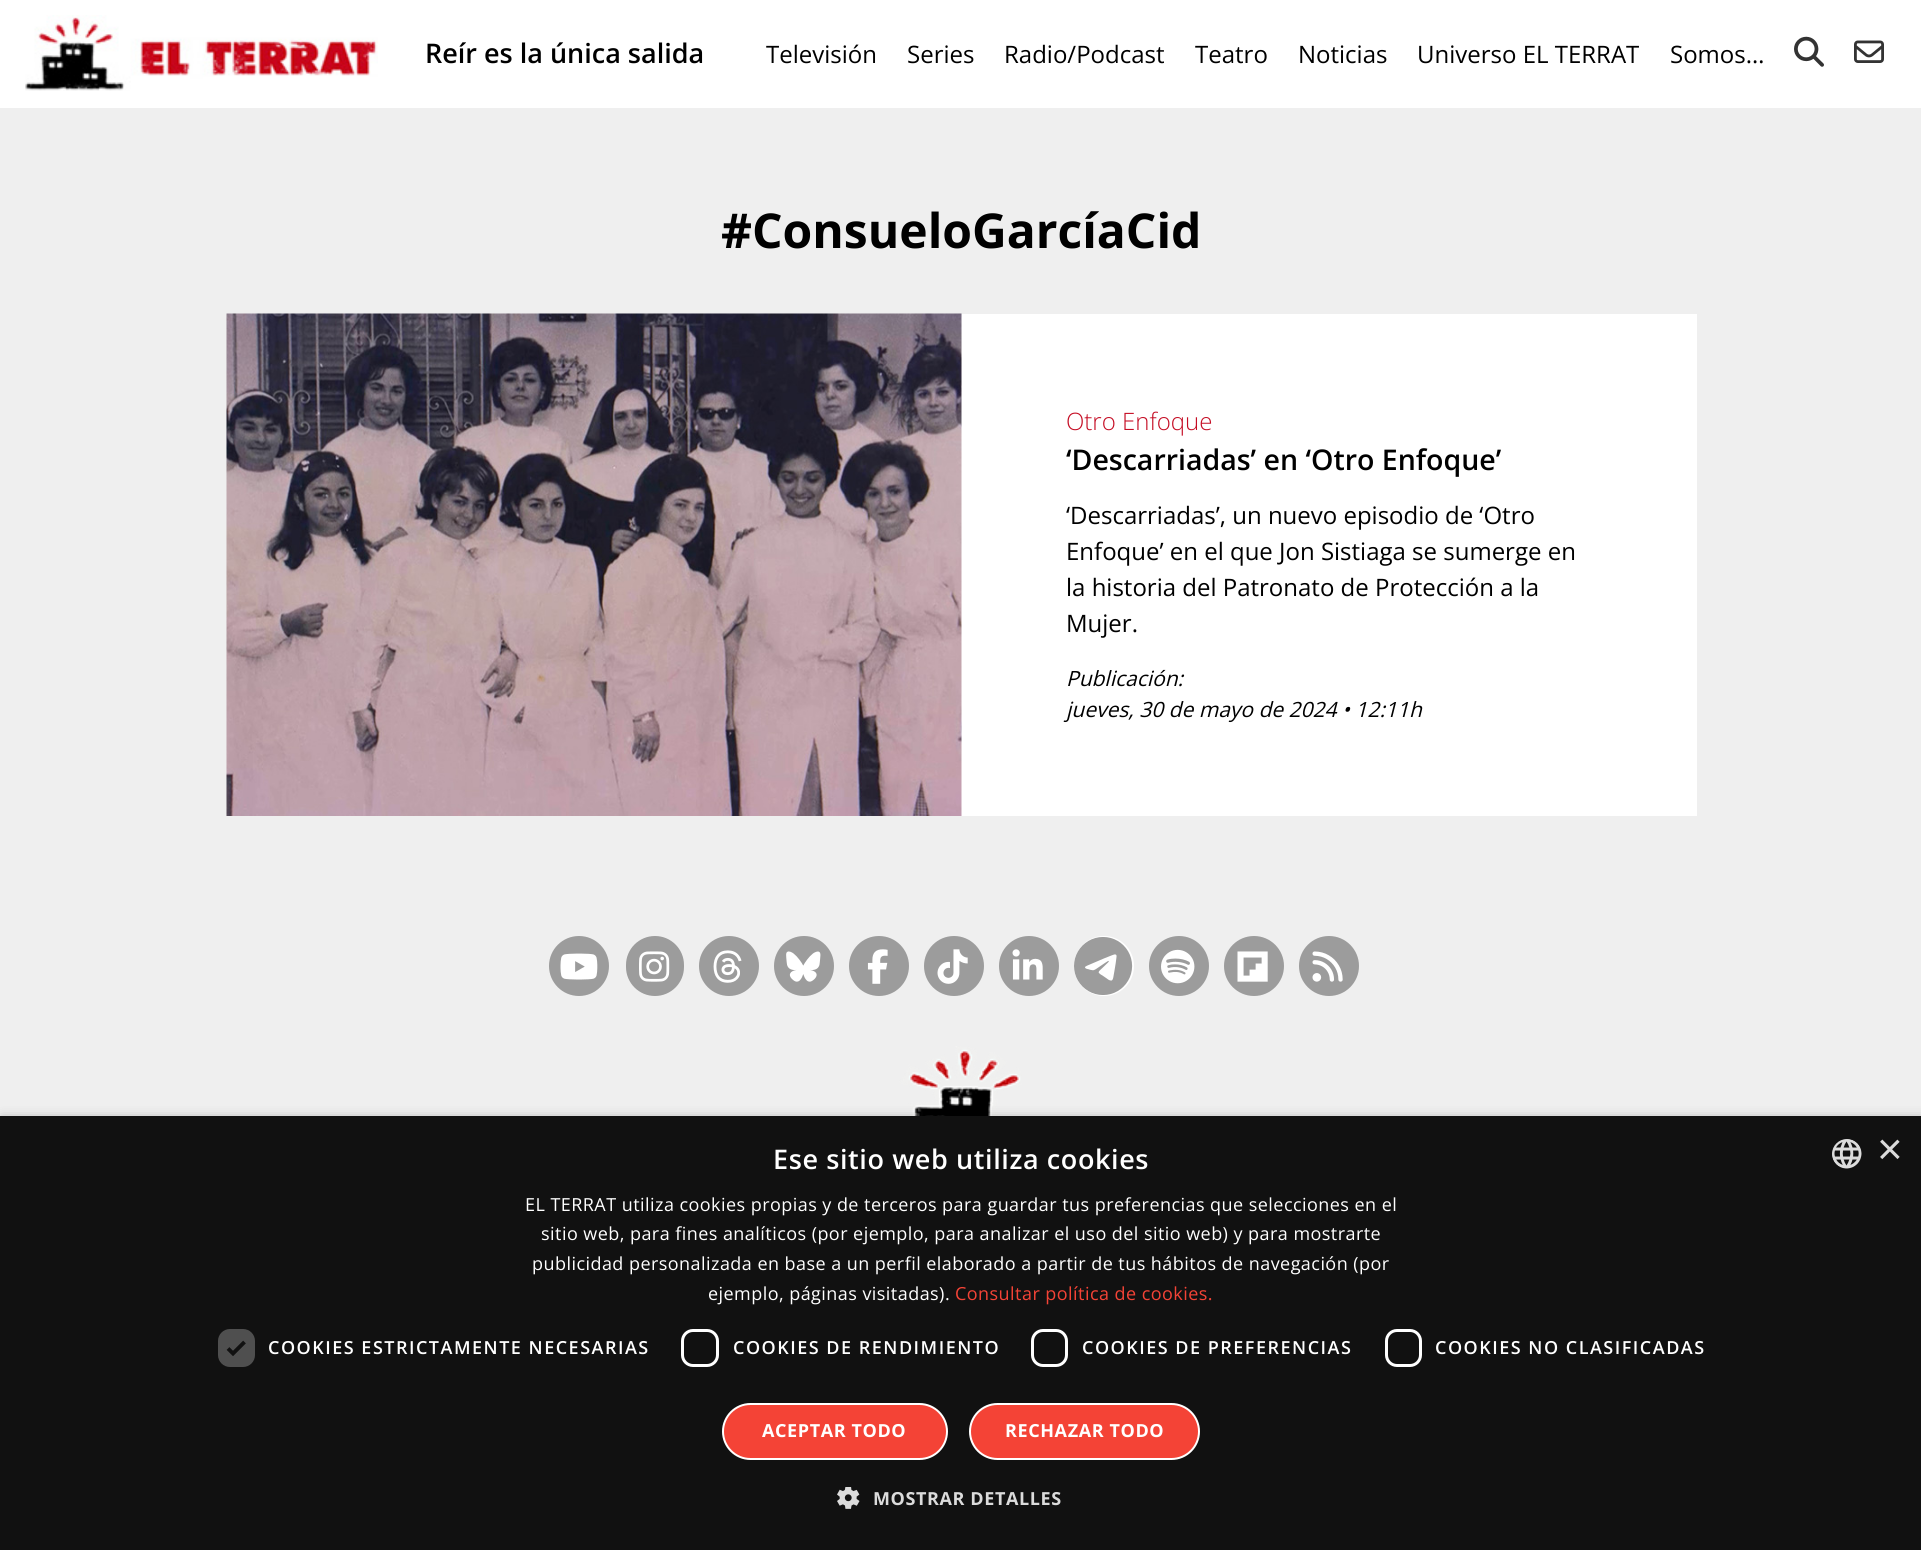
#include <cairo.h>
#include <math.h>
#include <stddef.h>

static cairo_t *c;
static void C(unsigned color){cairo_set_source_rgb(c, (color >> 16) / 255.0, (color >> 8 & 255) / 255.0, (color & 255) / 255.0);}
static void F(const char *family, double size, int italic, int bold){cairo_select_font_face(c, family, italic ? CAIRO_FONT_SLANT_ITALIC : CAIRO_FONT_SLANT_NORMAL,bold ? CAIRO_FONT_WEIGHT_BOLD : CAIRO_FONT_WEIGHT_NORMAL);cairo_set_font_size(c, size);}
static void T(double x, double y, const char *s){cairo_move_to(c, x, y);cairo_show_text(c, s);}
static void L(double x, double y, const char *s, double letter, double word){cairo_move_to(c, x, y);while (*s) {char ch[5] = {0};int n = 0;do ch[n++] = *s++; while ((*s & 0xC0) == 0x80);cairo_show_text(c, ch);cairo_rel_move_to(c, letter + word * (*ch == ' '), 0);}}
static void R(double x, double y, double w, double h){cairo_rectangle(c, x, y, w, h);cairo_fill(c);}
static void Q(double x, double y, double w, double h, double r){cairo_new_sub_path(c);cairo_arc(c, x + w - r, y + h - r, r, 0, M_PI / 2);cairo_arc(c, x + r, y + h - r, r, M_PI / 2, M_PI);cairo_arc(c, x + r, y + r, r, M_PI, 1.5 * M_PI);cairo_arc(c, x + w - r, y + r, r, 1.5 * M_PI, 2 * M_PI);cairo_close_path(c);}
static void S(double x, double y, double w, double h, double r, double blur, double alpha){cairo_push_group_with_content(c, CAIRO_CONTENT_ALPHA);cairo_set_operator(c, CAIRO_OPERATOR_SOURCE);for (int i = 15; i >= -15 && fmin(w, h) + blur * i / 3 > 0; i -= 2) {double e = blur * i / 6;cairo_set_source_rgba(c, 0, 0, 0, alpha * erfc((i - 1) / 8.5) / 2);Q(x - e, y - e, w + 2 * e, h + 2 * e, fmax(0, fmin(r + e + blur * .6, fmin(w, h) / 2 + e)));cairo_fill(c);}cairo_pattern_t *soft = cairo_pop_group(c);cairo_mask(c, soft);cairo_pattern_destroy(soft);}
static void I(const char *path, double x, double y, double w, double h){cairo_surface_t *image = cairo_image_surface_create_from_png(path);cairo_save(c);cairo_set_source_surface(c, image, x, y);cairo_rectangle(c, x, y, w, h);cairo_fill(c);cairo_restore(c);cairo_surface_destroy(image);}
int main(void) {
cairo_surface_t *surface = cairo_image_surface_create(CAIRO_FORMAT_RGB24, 1921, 1550);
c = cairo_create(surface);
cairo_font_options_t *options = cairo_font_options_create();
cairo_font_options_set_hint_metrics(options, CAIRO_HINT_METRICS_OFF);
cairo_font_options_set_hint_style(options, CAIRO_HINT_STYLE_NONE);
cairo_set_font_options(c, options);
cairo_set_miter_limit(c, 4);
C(0xefefef);
cairo_paint(c);
C(0xffffff);
R(0,0,1921,108);
I("1.png",25,15,353,76);
F("Open Sans SemiBold",27,0,0);
C(0x000000);
T(425,63,"Reír es la única salida");
F("Open Sans",24,0,0);
T(766,63,"Televisión");
T(907,63,"Series");
T(1004,63,"Radio/Podcast");
T(1195,63,"Teatro");
T(1298,63,"Noticias");
T(1417,63,"Universo EL TERRAT");
T(1670,63,"Somos…");
I("2.png",1794,36,30,31);
I("3.png",1854,40,30,23);
F("Open Sans",48,0,1);
T(721,248,"#ConsueloGarcíaCid");
C(0xffffff);
R(961,314,736,502);
I("4.png",226,313,736,503);
F("Open Sans Light",24,0,0);
C(0xc50d24);
T(1066,430,"Otro Enfoque");
F("Open Sans SemiBold",28.5,0,0);
C(0x000000);
T(1066,470,"‘Descarriadas’ en ‘Otro Enfoque’");
F("Open Sans",24,0,0);
T(1066,524,"‘Descarriadas’, un nuevo episodio de ‘Otro");
T(1066,560,"Enfoque’ en el que Jon Sistiaga se sumerge en");
T(1066,596,"la historia del Patronato de Protección a la");
T(1066,632,"Mujer.");
F("Open Sans",21,1,0);
T(1066,686,"Publicación:");
T(1066,717,"jueves, 30 de mayo de 2024 • 12:11h");
C(0x9c9c9c);
cairo_new_path(c);
cairo_arc(c,579,966,30,0,2 * M_PI);
cairo_fill(c);
I("5.png",560,953,38,27);
Q(626,936,58,60,29);
cairo_fill(c);
I("6.png",639,951,31,31);
cairo_arc(c,729,966,30,0,2 * M_PI);
cairo_fill(c);
I("7.png",713,950,29,33);
cairo_arc(c,804,966,30,0,2 * M_PI);
cairo_fill(c);
I("8.png",786,951,35,31);
cairo_arc(c,879,966,30,0,2 * M_PI);
cairo_fill(c);
I("9.png",867,949,21,35);
cairo_arc(c,954,966,30,0,2 * M_PI);
cairo_fill(c);
I("10.png",937,949,31,35);
cairo_arc(c,1029,966,30,0,2 * M_PI);
cairo_fill(c);
I("11.png",1012,949,31,31);
C(0xffffff);
cairo_arc(c,1104,966,30,0,2 * M_PI);
cairo_fill(c);
I("12.png",1074,937,59,58);
C(0x9c9c9c);
cairo_arc(c,1179,966,30,0,2 * M_PI);
cairo_fill(c);
I("13.png",1161,949,34,35);
cairo_arc(c,1254,966,30,0,2 * M_PI);
cairo_fill(c);
I("14.png",1237,951,31,31);
cairo_arc(c,1329,966,30,0,2 * M_PI);
cairo_fill(c);
I("15.png",1312,951,31,31);
I("16.png",899,1046,123,70);
C(0x000000);
S(2,1119,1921,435,0,6,.35);
C(0x111111);
R(0,1116,1921,434);
F("Open Sans SemiBold",27,0,0);
C(0xffffff);
L(773,1169,"Ese sitio web utiliza cookies",.6,0);
I("17.png",1832,1139,30,30);
F("Liberation Sans",44,0,0);
C(0xdbdbdb);
T(1877,1164,"×");
F("Open Sans",18,0,0);
C(0xffffff);
L(525,1211,"EL TERRAT utiliza cookies propias y de terceros para guardar tus preferencias que selecciones en el",.45,0);
L(541,1240,"sitio web, para fines analíticos (por ejemplo, para analizar el uso del sitio web) y para mostrarte",.45,0);
L(532,1270,"publicidad personalizada en base a un perfil elaborado a partir de tus hábitos de navegación (por",.45,0);
L(708,1300,"ejemplo, páginas visitadas).",.45,0);
C(0xf44336);
L(955,1300,"Consultar política de cookies.",.45,0);
C(0x4f4f4f);
Q(218,1329,37,38,12);
cairo_fill(c);
cairo_new_path(c);
cairo_move_to(c,228,1348.5);
cairo_line_to(c,233,1353.5);
cairo_line_to(c,244.5,1342);
C(0x111111);
cairo_set_line_width(c,3.9);
cairo_stroke(c);
F("Open Sans SemiBold",18,0,0);
C(0xffffff);
L(268,1354,"COOKIES ESTRICTAMENTE NECESARIAS",1.5,0);
Q(682.5,1330.5,35,35,10.5);
cairo_set_line_width(c,3);
cairo_stroke(c);
L(733,1354,"COOKIES DE RENDIMIENTO",1.5,0);
Q(1032.5,1330.5,34,35,10.5);
cairo_stroke(c);
L(1082,1354,"COOKIES DE PREFERENCIAS",1.5,0);
Q(1386.5,1330.5,34,35,10.5);
cairo_stroke(c);
L(1435,1354,"COOKIES NO CLASIFICADAS",1.5,0);
C(0xf44336);
Q(723,1404,224,55,27.5);
cairo_fill_preserve(c);
C(0xffffff);
cairo_set_line_width(c,2);
cairo_stroke(c);
F("Open Sans",18,0,1);
L(762,1437,"ACEPTAR TODO",.6,0);
C(0xf44336);
Q(970,1404,229,55,27.5);
cairo_fill_preserve(c);
C(0xffffff);
cairo_stroke(c);
L(1005,1437,"RECHAZAR TODO",.6,0);
I("18.png",837,1487,23,22);
C(0xdbdbdb);
L(873,1505,"MOSTRAR DETALLES",.6,0);
cairo_surface_write_to_png(surface, "o.png");
cairo_font_options_destroy(options);
cairo_destroy(c);
cairo_surface_destroy(surface);
return 0;
}
